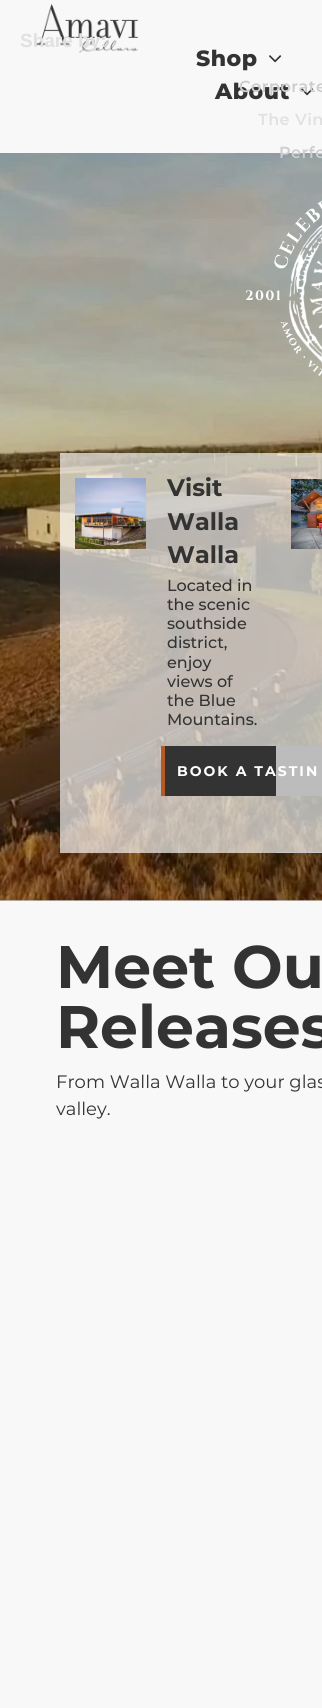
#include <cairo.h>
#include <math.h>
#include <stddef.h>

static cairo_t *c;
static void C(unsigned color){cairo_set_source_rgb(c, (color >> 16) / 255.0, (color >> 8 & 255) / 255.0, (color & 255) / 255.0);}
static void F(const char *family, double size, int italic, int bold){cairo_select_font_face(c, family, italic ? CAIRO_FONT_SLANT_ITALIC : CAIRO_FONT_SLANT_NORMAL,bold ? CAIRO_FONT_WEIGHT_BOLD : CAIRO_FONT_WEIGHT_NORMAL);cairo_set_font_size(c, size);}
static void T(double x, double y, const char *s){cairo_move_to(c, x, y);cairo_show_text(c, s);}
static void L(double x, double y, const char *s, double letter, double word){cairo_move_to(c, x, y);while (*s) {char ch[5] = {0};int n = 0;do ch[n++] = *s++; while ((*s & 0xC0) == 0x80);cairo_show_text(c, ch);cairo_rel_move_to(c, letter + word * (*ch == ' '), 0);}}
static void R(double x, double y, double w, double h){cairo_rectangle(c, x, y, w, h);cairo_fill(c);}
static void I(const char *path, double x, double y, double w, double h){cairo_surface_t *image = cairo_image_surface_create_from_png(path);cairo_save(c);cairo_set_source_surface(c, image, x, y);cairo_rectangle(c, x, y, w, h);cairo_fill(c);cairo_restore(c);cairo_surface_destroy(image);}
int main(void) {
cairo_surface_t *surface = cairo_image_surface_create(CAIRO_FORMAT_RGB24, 322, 1708);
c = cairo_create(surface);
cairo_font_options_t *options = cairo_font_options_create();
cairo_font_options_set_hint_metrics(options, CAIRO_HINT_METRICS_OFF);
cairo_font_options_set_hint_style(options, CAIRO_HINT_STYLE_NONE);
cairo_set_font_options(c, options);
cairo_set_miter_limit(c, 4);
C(0xf8f8f8);
cairo_paint(c);
I("1.png",35,4,103,49);
F("Liberation Sans",19,0,1);
C(0xe1e1e1);
T(20,47,"Share by:");
C(0xc9c9c9);
R(0,900,322,1);
F("Montserrat ExtraBold",22,0,0);
C(0x333333);
L(196,66,"Shop",.5,0);
I("2.png",269,55,13,8);
L(215,99,"About",.5,0);
I("2.png",301,88,13,8);
F("Montserrat SemiBold",16,0,0);
C(0xcdcdcd);
L(239,92,"Corporate",.5,0);
C(0xe1e1e1);
L(258,125,"The Vin",.5,0);
I("3.png",0,153,322,748);
C(0xcdcdcd);
L(279,158,"Perfe",.5,0);
I("4.png",246,200,76,176);
cairo_set_source_rgba(c,1,1,1,0.67);
R(60,453,216,400);
C(0x333333);
R(165,746,157,50);
F("Montserrat",14,0,1);
C(0xffffff);
L(177,776,"BOOK A TASTIN",2,0);
cairo_set_source_rgba(c,1,1,1,0.67);
R(276,454,46,398);
C(0xc7c7c7);
R(276,453,46,1);
R(276,852,46,1);
I("5.png",291,479,31,70);
I("6.png",75,478,71,71);
F("Montserrat",24,0,1);
C(0x333333);
T(167,496,"Visit");
T(167,530,"Walla");
T(167,563,"Walla");
F("Montserrat Medium",16,0,0);
T(167,591,"Located in");
T(167,610,"the scenic");
T(167,629,"southside");
T(167,648,"district,");
T(167,668,"enjoy");
T(167,687,"views of");
T(167,706,"the Blue");
T(167,725,"Mountains.");
C(0xb55a22);
R(161,746,4,50);
F("Montserrat",60,0,1);
C(0x333333);
T(56,988,"Meet Ou");
T(56,1048,"Releases");
F("Montserrat",18,0,0);
T(56,1088,"From Walla Walla to your glas");
T(56,1115,"valley.");
cairo_surface_write_to_png(surface, "o.png");
cairo_font_options_destroy(options);
cairo_destroy(c);
cairo_surface_destroy(surface);
return 0;
}
